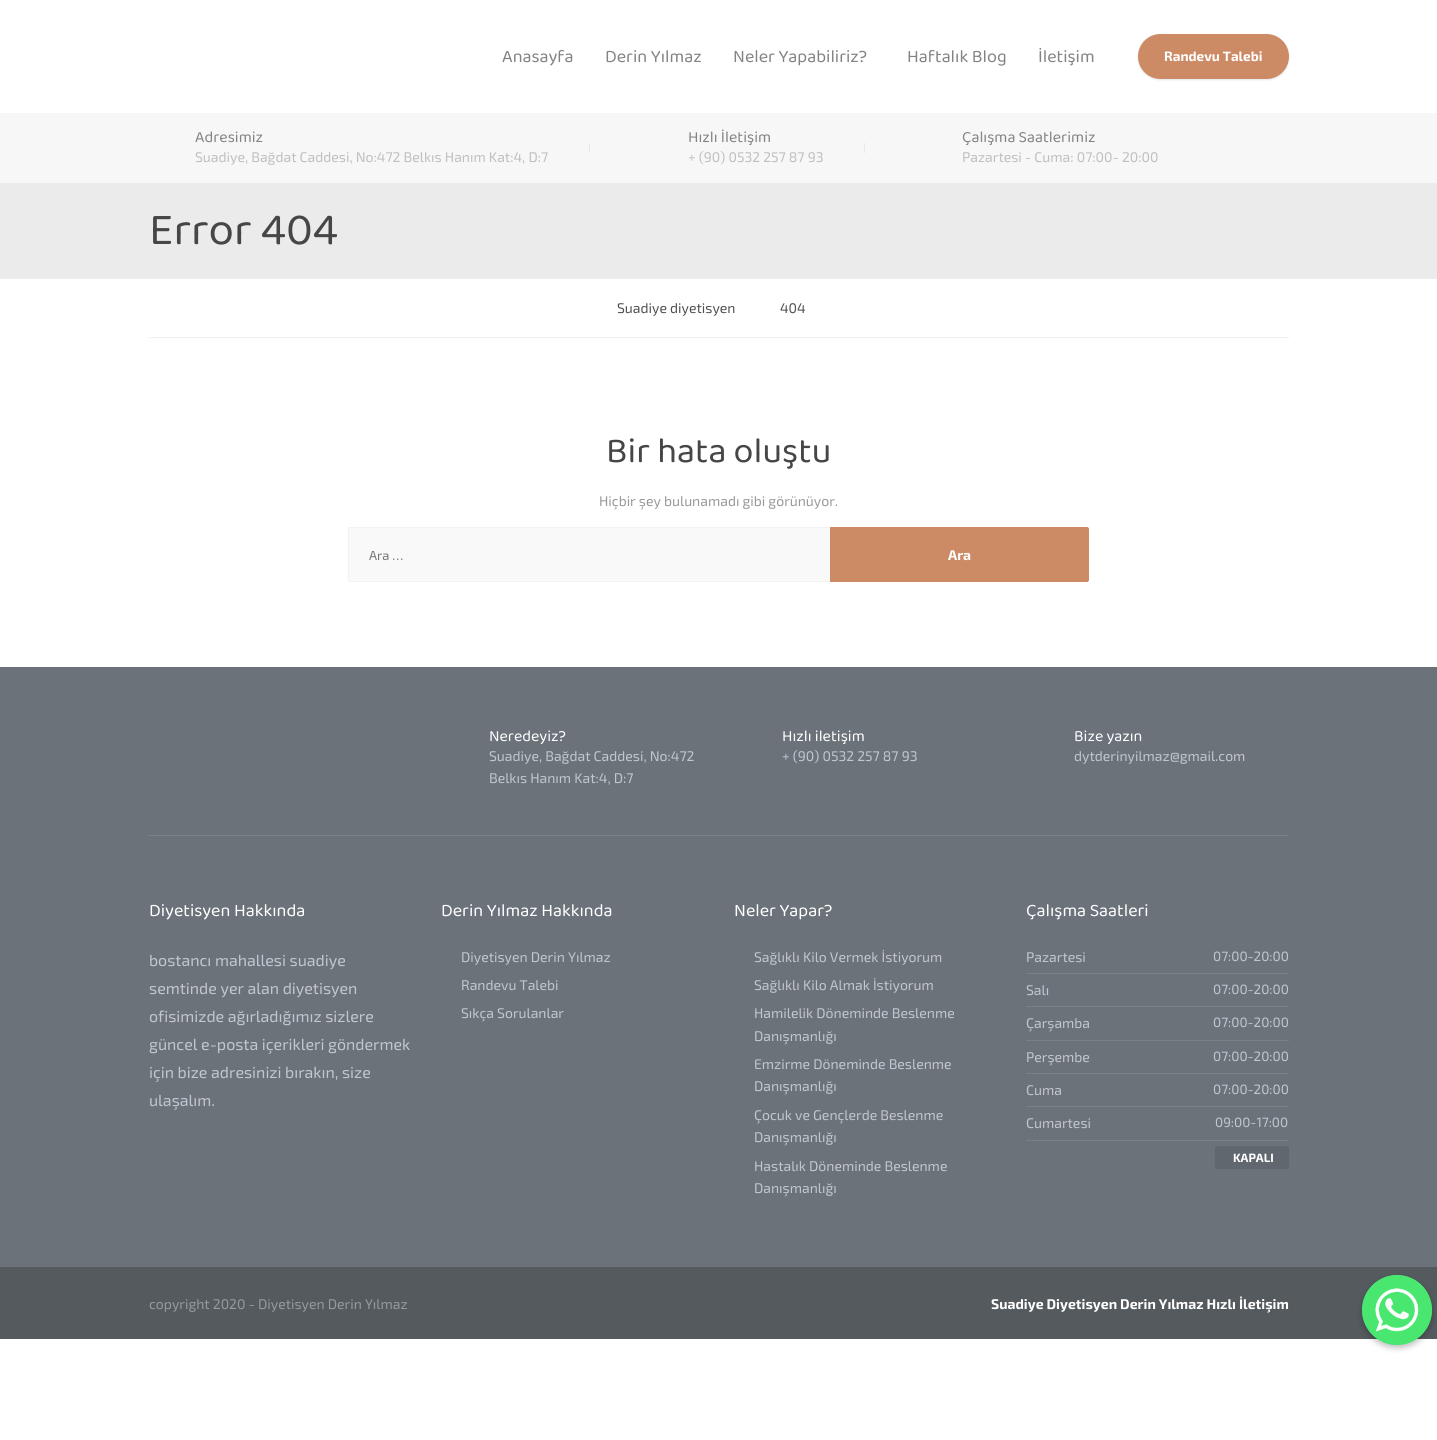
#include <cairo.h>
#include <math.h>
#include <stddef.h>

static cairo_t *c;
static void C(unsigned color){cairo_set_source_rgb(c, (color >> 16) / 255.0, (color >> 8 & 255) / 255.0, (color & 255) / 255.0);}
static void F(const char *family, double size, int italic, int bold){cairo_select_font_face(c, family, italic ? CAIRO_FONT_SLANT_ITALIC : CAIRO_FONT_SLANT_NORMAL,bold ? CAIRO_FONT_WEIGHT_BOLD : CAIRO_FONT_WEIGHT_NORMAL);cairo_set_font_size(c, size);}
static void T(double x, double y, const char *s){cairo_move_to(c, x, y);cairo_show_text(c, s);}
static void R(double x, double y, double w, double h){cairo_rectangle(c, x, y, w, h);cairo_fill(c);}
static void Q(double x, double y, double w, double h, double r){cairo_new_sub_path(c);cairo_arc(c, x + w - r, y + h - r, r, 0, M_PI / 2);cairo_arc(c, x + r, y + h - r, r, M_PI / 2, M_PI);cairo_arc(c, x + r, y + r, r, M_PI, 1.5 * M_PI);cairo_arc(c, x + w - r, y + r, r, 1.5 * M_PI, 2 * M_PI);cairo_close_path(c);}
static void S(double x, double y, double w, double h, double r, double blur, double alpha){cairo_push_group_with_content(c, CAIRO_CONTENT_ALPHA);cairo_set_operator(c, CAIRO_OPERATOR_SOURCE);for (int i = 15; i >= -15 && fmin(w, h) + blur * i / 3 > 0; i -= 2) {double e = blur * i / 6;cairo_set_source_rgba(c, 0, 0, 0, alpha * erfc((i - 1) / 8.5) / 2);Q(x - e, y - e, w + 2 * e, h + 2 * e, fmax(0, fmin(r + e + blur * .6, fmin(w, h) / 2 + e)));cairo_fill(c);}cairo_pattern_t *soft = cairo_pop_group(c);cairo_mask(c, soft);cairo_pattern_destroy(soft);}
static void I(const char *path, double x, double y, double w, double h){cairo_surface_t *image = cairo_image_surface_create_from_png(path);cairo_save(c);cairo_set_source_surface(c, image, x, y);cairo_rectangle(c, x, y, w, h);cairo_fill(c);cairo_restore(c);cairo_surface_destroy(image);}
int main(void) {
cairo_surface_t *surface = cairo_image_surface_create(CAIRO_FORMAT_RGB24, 1437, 1440);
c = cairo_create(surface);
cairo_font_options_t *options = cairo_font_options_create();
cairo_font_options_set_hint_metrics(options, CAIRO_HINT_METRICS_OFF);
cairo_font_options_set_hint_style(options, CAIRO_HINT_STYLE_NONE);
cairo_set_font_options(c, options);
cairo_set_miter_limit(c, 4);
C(0xffffff);
cairo_paint(c);
F("Baloo Chettan 2",18,0,0);
C(0x838383);
T(502,62,"Anasayfa");
T(605,62,"Derin Yılmaz");
T(733,62,"Neler Yapabiliriz?");
T(907,62,"Haftalık Blog");
T(1038,62,"İletişim");
C(0x000000);
S(1138,35,151,45,22.5,1,.1);
C(0xcc8b65);
Q(1138,34,151,45,22.5);
cairo_fill(c);
F("Exo 2",13.5,0,1);
C(0xffffff);
T(1164,61,"Randevu Talebi");
C(0xf7f7f7);
R(0,113,1437,70);
F("Baloo Chettan 2",16,0,0);
C(0x838383);
T(195,142,"Adresimiz");
F("Exo 2",14,0,0);
C(0xbfbfbf);
T(195,162,"Suadiye, Bağdat Caddesi, No:472 Belkıs Hanım Kat:4, D:7");
C(0xe8e8e8);
R(589,143,1,10);
F("Baloo Chettan 2",16,0,0);
C(0x838383);
T(688,142,"Hızlı İletişim");
F("Exo 2",14,0,0);
C(0xbfbfbf);
T(688,162,"+ (90) 0532 257 87 93");
C(0xe8e8e8);
R(864,143,1,10);
F("Baloo Chettan 2",16,0,0);
C(0x838383);
T(962,142,"Çalışma Saatlerimiz");
F("Exo 2",14,0,0);
C(0xbfbfbf);
T(962,162,"Pazartesi - Cuma: 07:00- 20:00");
C(0xebebeb);
R(0,183,1437,96);
F("Baloo Chettan 2",46,0,0);
C(0x464646);
T(149,244,"Error 404");
C(0xf0f0f0);
R(149,337,1140,1);
F("Exo 2",14,0,0);
C(0x505050);
T(617,313,"Suadiye diyetisyen");
T(780,313,"404");
F("Baloo Chettan 2",36,0,0);
C(0x464646);
T(606,462,"Bir hata oluştu");
F("Exo 2",14,0,0);
C(0x999999);
T(599,506,"Hiçbir şey bulunamadı gibi görünüyor.");
C(0xf9f9f9);
cairo_new_path(c);
cairo_move_to(c,350,528);
cairo_line_to(c,828,528);
cairo_curve_to(c,829,528,830,528,830,529);
cairo_line_to(c,830,580);
cairo_curve_to(c,830,581,829,581,828,581);
cairo_line_to(c,350,581);
cairo_curve_to(c,349,581,349,581,349,580);
cairo_line_to(c,349,529);
cairo_curve_to(c,349,528,349,528,350,528);
cairo_close_path(c);
cairo_fill(c);
C(0xf2f2f2);
R(349,527,480,1);
R(349,581,480,1);
R(348,528,1,53);
F("Exo 2",13,0,0);
C(0x757575);
T(369,560,"Ara …");
C(0xcc8b65);
cairo_new_path(c);
cairo_move_to(c,830,527);
cairo_line_to(c,1087,527);
cairo_curve_to(c,1088,527,1089,528,1089,529);
cairo_line_to(c,1089,580);
cairo_curve_to(c,1089,581,1088,582,1087,582);
cairo_line_to(c,830,582);
cairo_close_path(c);
cairo_fill(c);
F("Exo 2",14,0,1);
C(0xffffff);
T(948,560,"Ara");
C(0x6b727a);
R(0,667,1437,600);
C(0x7a8087);
R(149,835,1140,1);
F("Baloo Chettan 2",16,0,0);
C(0xffffff);
T(489,741,"Neredeyiz?");
F("Exo 2",14,0,0);
C(0xc1c7ce);
T(489,761,"Suadiye, Bağdat Caddesi, No:472");
T(489,783,"Belkıs Hanım Kat:4, D:7");
F("Baloo Chettan 2",16,0,0);
C(0xffffff);
T(782,741,"Hızlı iletişim");
F("Exo 2",14,0,0);
C(0xc1c7ce);
T(782,761,"+ (90) 0532 257 87 93");
F("Baloo Chettan 2",16,0,0);
C(0xffffff);
T(1074,741,"Bize yazın");
F("Exo 2",14,0,0);
C(0xc1c7ce);
T(1074,761,"dytderinyilmaz@gmail.com");
F("Baloo Chettan 2",18,0,0);
C(0xffffff);
T(149,916,"Diyetisyen Hakkında");
F("Exo 2",16,0,0);
C(0xc1c7ce);
T(149,966,"bostancı mahallesi suadiye");
T(149,994,"semtinde yer alan diyetisyen");
T(149,1022,"ofisimizde ağırladığımız sizlere");
T(149,1050,"güncel e-posta içerikleri göndermek");
T(149,1078,"için bize adresinizi bırakın, size");
T(149,1106,"ulaşalım.");
F("Baloo Chettan 2",18,0,0);
C(0xffffff);
T(441,916,"Derin Yılmaz Hakkında");
F("Exo 2",14,0,0);
C(0xc1c7ce);
T(461,962,"Diyetisyen Derin Yılmaz");
T(461,990,"Randevu Talebi");
T(461,1018,"Sıkça Sorulanlar");
F("Baloo Chettan 2",18,0,0);
C(0xffffff);
T(734,916,"Neler Yapar?");
F("Exo 2",14,0,0);
C(0xc1c7ce);
T(754,962,"Sağlıklı Kilo Vermek İstiyorum");
T(754,990,"Sağlıklı Kilo Almak İstiyorum");
T(754,1018,"Hamilelik Döneminde Beslenme");
T(754,1041,"Danışmanlığı");
T(754,1069,"Emzirme Döneminde Beslenme");
T(754,1091,"Danışmanlığı");
T(754,1120,"Çocuk ve Gençlerde Beslenme");
T(754,1142,"Danışmanlığı");
T(754,1171,"Hastalık Döneminde Beslenme");
T(754,1193,"Danışmanlığı");
F("Baloo Chettan 2",18,0,0);
C(0xffffff);
T(1026,916,"Çalışma Saatleri");
C(0x7a8087);
R(1026,973,263,1);
F("Exo 2",14,0,0);
C(0xc1c7ce);
T(1026,962,"Pazartesi");
F("Exo 2",13.5,0,0);
T(1213,961,"07:00-20:00");
C(0x7a8087);
R(1026,1006,263,1);
F("Exo 2",14,0,0);
C(0xc1c7ce);
T(1026,995,"Salı");
F("Exo 2",13.5,0,0);
T(1213,994,"07:00-20:00");
C(0x7a8087);
R(1026,1040,263,1);
F("Exo 2",14,0,0);
C(0xc1c7ce);
T(1026,1028,"Çarşamba");
F("Exo 2",13.5,0,0);
T(1213,1027,"07:00-20:00");
C(0x7a8087);
R(1026,1073,263,1);
F("Exo 2",14,0,0);
C(0xc1c7ce);
T(1026,1062,"Perşembe");
F("Exo 2",13.5,0,0);
T(1213,1061,"07:00-20:00");
C(0x7a8087);
R(1026,1106,263,1);
F("Exo 2",14,0,0);
C(0xc1c7ce);
T(1026,1095,"Cuma");
F("Exo 2",13.5,0,0);
T(1213,1094,"07:00-20:00");
C(0x7a8087);
R(1026,1140,263,1);
F("Exo 2",14,0,0);
C(0xc1c7ce);
T(1026,1128,"Cumartesi");
F("Exo 2",13.5,0,0);
T(1215,1127,"09:00-17:00");
C(0x60676e);
Q(1215,1146,74,23,2);
cairo_fill(c);
F("Exo 2",12,0,1);
C(0xffffff);
T(1233,1162,"KAPALI");
C(0x555a5f);
R(0,1267,1437,72);
F("Exo 2",14,0,0);
C(0x909ba2);
T(149,1309,"copyright 2020 - Diyetisyen Derin Yılmaz");
F("Exo 2",14,0,1);
C(0xffffff);
T(991,1309,"Suadiye Diyetisyen Derin Yılmaz Hızlı İletişim");
C(0x000000);
S(1362,1278,70,70,35,3,.25);
C(0x49e670);
cairo_arc(c,1397,1310,35,0,2 * M_PI);
cairo_fill(c);
I("1.png",1362,1275,70,70);
cairo_surface_write_to_png(surface, "o.png");
cairo_font_options_destroy(options);
cairo_destroy(c);
cairo_surface_destroy(surface);
return 0;
}
